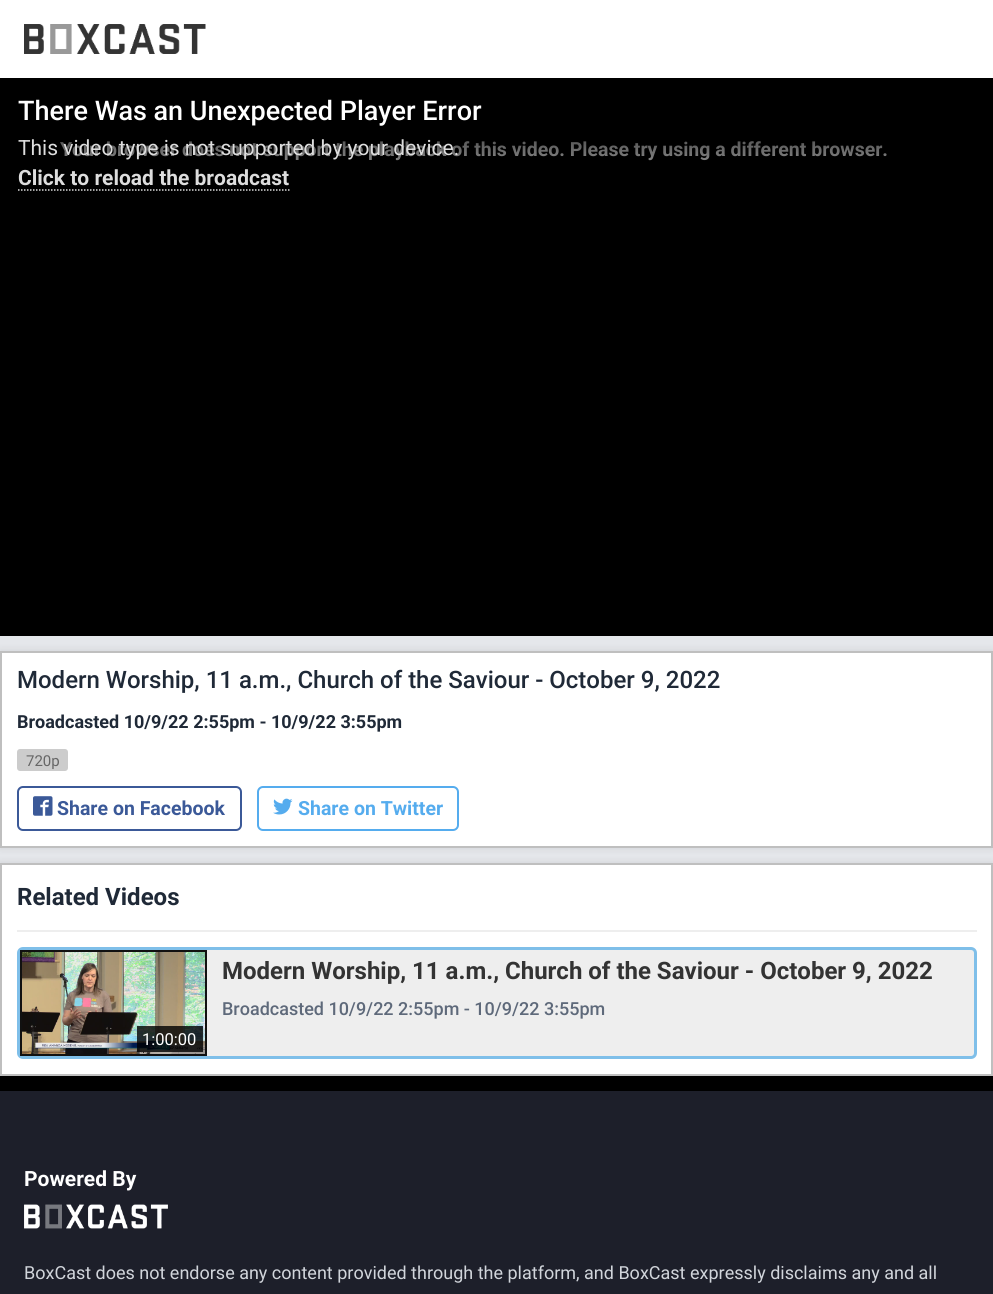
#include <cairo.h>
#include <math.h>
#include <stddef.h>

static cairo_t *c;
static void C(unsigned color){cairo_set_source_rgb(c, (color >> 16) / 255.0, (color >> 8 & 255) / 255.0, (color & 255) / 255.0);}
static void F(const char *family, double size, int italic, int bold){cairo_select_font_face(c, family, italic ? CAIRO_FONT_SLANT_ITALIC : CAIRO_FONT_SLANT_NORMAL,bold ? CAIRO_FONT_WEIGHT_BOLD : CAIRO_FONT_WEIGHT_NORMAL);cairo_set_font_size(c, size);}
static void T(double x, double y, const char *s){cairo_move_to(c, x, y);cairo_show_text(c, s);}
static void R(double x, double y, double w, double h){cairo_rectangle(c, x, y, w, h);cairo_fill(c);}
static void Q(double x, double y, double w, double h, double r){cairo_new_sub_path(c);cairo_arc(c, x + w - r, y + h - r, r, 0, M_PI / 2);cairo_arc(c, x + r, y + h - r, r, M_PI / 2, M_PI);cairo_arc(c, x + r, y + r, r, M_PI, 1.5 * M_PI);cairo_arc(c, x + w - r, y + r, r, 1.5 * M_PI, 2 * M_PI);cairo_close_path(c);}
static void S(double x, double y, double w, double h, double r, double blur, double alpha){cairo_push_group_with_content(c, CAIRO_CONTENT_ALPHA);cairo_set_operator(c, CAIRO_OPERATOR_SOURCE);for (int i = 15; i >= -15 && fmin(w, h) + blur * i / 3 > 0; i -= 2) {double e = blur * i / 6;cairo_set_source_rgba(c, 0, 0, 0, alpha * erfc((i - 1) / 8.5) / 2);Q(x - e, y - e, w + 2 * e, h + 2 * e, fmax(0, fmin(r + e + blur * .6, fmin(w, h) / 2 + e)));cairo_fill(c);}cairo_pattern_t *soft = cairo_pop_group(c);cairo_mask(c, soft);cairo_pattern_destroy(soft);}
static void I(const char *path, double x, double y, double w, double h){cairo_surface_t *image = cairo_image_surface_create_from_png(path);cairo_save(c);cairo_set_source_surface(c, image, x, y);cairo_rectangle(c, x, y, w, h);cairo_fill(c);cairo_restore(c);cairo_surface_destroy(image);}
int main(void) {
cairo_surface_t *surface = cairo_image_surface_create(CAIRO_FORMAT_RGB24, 993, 1294);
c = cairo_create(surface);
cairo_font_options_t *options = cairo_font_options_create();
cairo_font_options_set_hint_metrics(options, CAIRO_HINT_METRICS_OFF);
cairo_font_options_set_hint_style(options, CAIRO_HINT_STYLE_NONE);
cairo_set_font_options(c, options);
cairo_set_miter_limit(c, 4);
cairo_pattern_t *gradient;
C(0x000000);
cairo_paint(c);
C(0xffffff);
R(0,0,993,78);
I("1.png",24,24,182,30);
C(0xe5e7eb);
R(0,636,993,227);
F("Roboto",19.5,0,1);
C(0xdddddd);
T(60,156,"Your browser does not support the playback of this video. Please try using a different browser.");
gradient = cairo_pattern_create_linear(497,78,497,204);
cairo_pattern_add_color_stop_rgba(gradient,0,0,0,0,.8);
cairo_pattern_add_color_stop_rgba(gradient,.5,0,0,0,.6);
cairo_pattern_add_color_stop_rgba(gradient,1,0,0,0,0);
cairo_set_source(c,gradient);
cairo_pattern_destroy(gradient);
R(60,141,827,20);
F("Roboto Medium",27,0,0);
C(0xffffff);
T(18,120,"There Was an Unexpected Player Error");
F("Roboto",21,0,0);
C(0xdddddd);
T(18,155,"This video type is not supported by your device.");
cairo_new_path(c);
cairo_move_to(c,18,190);
cairo_line_to(c,289.5,190);
cairo_set_line_width(c,1.5);
cairo_set_dash(c,(double[]){1.5,1.5},2,0);
cairo_stroke(c);
F("Roboto",21,0,1);
T(18,185,"Click to reload the broadcast");
C(0x000000);
S(0,651,993,197,0,4,.1);
C(0xffffff);
cairo_rectangle(c,1,652,991,195);
cairo_fill_preserve(c);
C(0xbfbfbf);
cairo_set_line_width(c,2);
cairo_set_dash(c,NULL,0,0);
cairo_stroke(c);
F("Roboto Medium",24,0,0);
C(0x1f2937);
T(17,688,"Modern Worship, 11 a.m., Church of the Saviour - October 9, 2022");
F("Roboto",18,0,1);
T(17,728,"Broadcasted 10/9/22 2:55pm - 10/9/22 3:55pm");
C(0xcccccc);
Q(17,749,51,22,3);
cairo_fill(c);
F("Roboto",15,0,0);
C(0x666666);
T(26,766,"720p");
Q(18,787,223,43,5);
C(0x3b5998);
cairo_stroke(c);
I("2.png",33,796,20,20);
F("Roboto",19.5,0,1);
T(57,815,"Share on Facebook");
Q(258,787,200,43,5);
C(0x55acee);
cairo_stroke(c);
I("3.png",273,798,20,17);
T(298,815,"Share on Twitter");
C(0x000000);
S(0,863,993,213,0,4,.1);
C(0xffffff);
cairo_rectangle(c,1,864,991,211);
cairo_fill_preserve(c);
C(0xbfbfbf);
cairo_stroke(c);
C(0xeeeeee);
R(17,930,960,2);
F("Roboto",24,0,1);
C(0x1f2937);
T(17,905,"Related Videos");
C(0xeeeeee);
Q(18.5,948.5,957,109,4.5);
cairo_fill_preserve(c);
C(0x7fbfe9);
cairo_set_line_width(c,3);
cairo_stroke(c);
C(0x333333);
T(222,979,"Modern Worship, 11 a.m., Church of the Saviour - October 9, 2022");
F("Roboto Medium",18,0,0);
C(0x5e697a);
T(222,1015,"Broadcasted 10/9/22 2:55pm - 10/9/22 3:55pm");
I("4.png",22,952,183,102);
cairo_rectangle(c,21,951,185,104);
C(0x111111);
cairo_set_line_width(c,2);
cairo_stroke(c);
cairo_set_source_rgba(c,0,0,0,0.8);
R(137,1026,66,26);
F("Roboto",16.5,0,0);
C(0xffffff);
T(142,1045,"1:00:00");
C(0x1d1f2a);
R(0,1091,993,203);
F("Roboto",21,0,1);
C(0xffffff);
T(24,1186,"Powered By");
I("5.png",24,1204,144,25);
F("Roboto",18,0,0);
C(0xd1d5db);
T(24,1279,"BoxCast does not endorse any content provided through the platform, and BoxCast expressly disclaims any and all");
cairo_surface_write_to_png(surface, "o.png");
cairo_font_options_destroy(options);
cairo_destroy(c);
cairo_surface_destroy(surface);
return 0;
}
